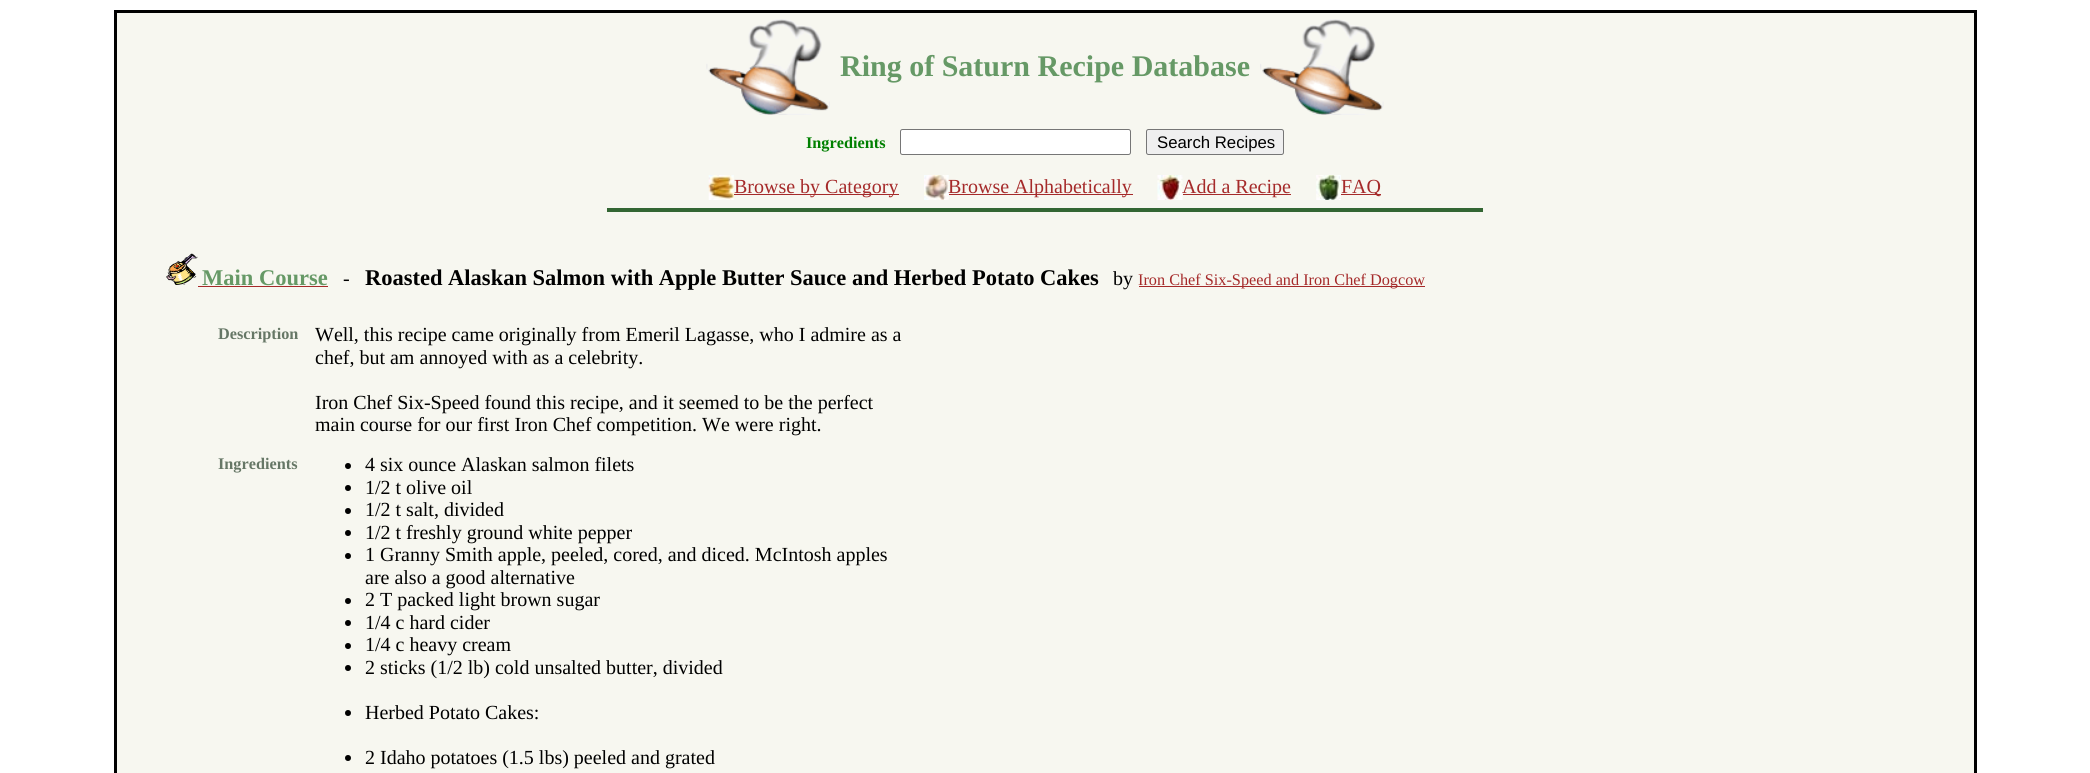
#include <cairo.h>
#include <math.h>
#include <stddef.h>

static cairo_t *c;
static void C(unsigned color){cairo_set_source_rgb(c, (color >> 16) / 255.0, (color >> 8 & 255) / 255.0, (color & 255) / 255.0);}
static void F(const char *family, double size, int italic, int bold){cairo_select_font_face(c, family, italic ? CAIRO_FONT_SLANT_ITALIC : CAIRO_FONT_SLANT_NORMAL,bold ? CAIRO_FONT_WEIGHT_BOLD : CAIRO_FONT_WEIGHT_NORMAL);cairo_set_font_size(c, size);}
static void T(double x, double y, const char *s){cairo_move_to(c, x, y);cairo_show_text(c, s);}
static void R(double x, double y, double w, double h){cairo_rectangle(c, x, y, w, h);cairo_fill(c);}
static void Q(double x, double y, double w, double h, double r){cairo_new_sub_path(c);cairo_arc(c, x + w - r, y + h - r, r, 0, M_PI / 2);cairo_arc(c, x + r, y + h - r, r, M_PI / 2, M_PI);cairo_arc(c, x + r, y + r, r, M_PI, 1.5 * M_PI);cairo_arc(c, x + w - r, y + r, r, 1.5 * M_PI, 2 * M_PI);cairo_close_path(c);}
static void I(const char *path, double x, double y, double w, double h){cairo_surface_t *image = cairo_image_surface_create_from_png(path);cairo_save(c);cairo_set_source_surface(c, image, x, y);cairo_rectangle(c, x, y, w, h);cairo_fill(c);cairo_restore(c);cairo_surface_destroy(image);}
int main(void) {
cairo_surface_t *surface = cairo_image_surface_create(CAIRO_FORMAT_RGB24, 2090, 773);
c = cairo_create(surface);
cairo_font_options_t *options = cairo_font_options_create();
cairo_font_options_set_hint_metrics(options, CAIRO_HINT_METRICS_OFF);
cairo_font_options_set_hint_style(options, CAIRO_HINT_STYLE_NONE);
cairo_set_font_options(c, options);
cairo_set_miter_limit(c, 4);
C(0xffffff);
cairo_paint(c);
C(0xf7f7f0);
R(117,13,1857,760);
C(0x000000);
R(114,10,1863,3);
R(114,13,3,760);
I("1.png",706,19,124,96);
F("Liberation Serif",30,0,1);
C(0x669966);
T(840,76,"Ring of Saturn Recipe Database");
I("2.png",1260,19,124,96);
F("Liberation Serif",16.25,0,1);
C(0x008000);
T(806,148,"Ingredients");
C(0xffffff);
Q(900.5,129.5,230,25,2);
cairo_fill_preserve(c);
C(0x767676);
cairo_set_line_width(c,1);
cairo_stroke(c);
C(0xefefef);
Q(1146.5,129.5,137,25,2);
cairo_fill_preserve(c);
C(0x767676);
cairo_stroke(c);
F("Liberation Sans",16.75,0,0);
C(0x000000);
T(1157,148,"Search Recipes");
I("3.png",708,175,26,25);
C(0xa52a2a);
R(734,194,165,1);
F("Liberation Serif",20,0,0);
T(734,193,"Browse by Category");
I("4.png",924,175,25,25);
R(949,194,184,1);
T(948,193,"Browse Alphabetically");
I("5.png",1157,175,26,25);
R(1183,194,108,1);
T(1182,193,"Add a Recipe");
I("6.png",1316,175,25,25);
R(1341,194,40,1);
T(1341,193,"FAQ");
C(0x336633);
R(607,208,876,4);
I("7.png",166,253,32,32);
F("Liberation Serif",22.5,0,1);
C(0x669966);
T(202,285,"Main Course");
C(0xa52a2a);
R(198,286,130,1);
F("Liberation Serif",20,0,0);
C(0x000000);
T(343,285,"-");
F("Liberation Serif",22.5,0,1);
T(365,285,"Roasted Alaskan Salmon with Apple Butter Sauce and Herbed Potato Cakes");
F("Liberation Serif",20,0,0);
T(1113,285,"by");
C(0xa52a2a);
R(1139,286,286,1);
F("Liberation Serif",16.25,0,0);
T(1138,285,"Iron Chef Six-Speed and Iron Chef Dogcow");
F("Liberation Serif",16.25,0,1);
C(0x667766);
T(218,339,"Description");
F("Liberation Serif",20,0,0);
C(0x000000);
T(315,341,"Well, this recipe came originally from Emeril Lagasse, who I admire as a");
T(315,364,"chef, but am annoyed with as a celebrity.");
T(315,409,"Iron Chef Six-Speed found this recipe, and it seemed to be the perfect");
T(315,431,"main course for our first Iron Chef competition. We were right.");
F("Liberation Serif",16.25,0,1);
C(0x667766);
T(218,469,"Ingredients");
C(0x000000);
cairo_new_path(c);
cairo_arc(c,348,466,3,0,2 * M_PI);
cairo_fill(c);
F("Liberation Serif",20,0,0);
T(365,471,"4 six ounce Alaskan salmon filets");
cairo_new_path(c);
cairo_arc(c,348,488,3,0,2 * M_PI);
cairo_fill(c);
T(365,494,"1/2 t olive oil");
cairo_new_path(c);
cairo_arc(c,348,511,3,0,2 * M_PI);
cairo_fill(c);
T(365,516,"1/2 t salt, divided");
cairo_new_path(c);
cairo_arc(c,348,533,3,0,2 * M_PI);
cairo_fill(c);
T(365,539,"1/2 t freshly ground white pepper");
cairo_new_path(c);
cairo_arc(c,348,556,3,0,2 * M_PI);
cairo_fill(c);
T(365,561,"1 Granny Smith apple, peeled, cored, and diced. McIntosh apples");
T(365,584,"are also a good alternative");
cairo_new_path(c);
cairo_arc(c,348,601,3,0,2 * M_PI);
cairo_fill(c);
T(365,606,"2 T packed light brown sugar");
cairo_new_path(c);
cairo_arc(c,348,623,3,0,2 * M_PI);
cairo_fill(c);
T(365,629,"1/4 c hard cider");
cairo_new_path(c);
cairo_arc(c,348,646,3,0,2 * M_PI);
cairo_fill(c);
T(365,651,"1/4 c heavy cream");
cairo_new_path(c);
cairo_arc(c,348,668,3,0,2 * M_PI);
cairo_fill(c);
T(365,674,"2 sticks (1/2 lb) cold unsalted butter, divided");
cairo_new_path(c);
cairo_arc(c,348,713,3,0,2 * M_PI);
cairo_fill(c);
T(365,719,"Herbed Potato Cakes:");
cairo_new_path(c);
cairo_arc(c,348,758,3,0,2 * M_PI);
cairo_fill(c);
T(365,764,"2 Idaho potatoes (1.5 lbs) peeled and grated");
R(1974,13,3,760);
cairo_surface_write_to_png(surface, "o.png");
cairo_font_options_destroy(options);
cairo_destroy(c);
cairo_surface_destroy(surface);
return 0;
}
